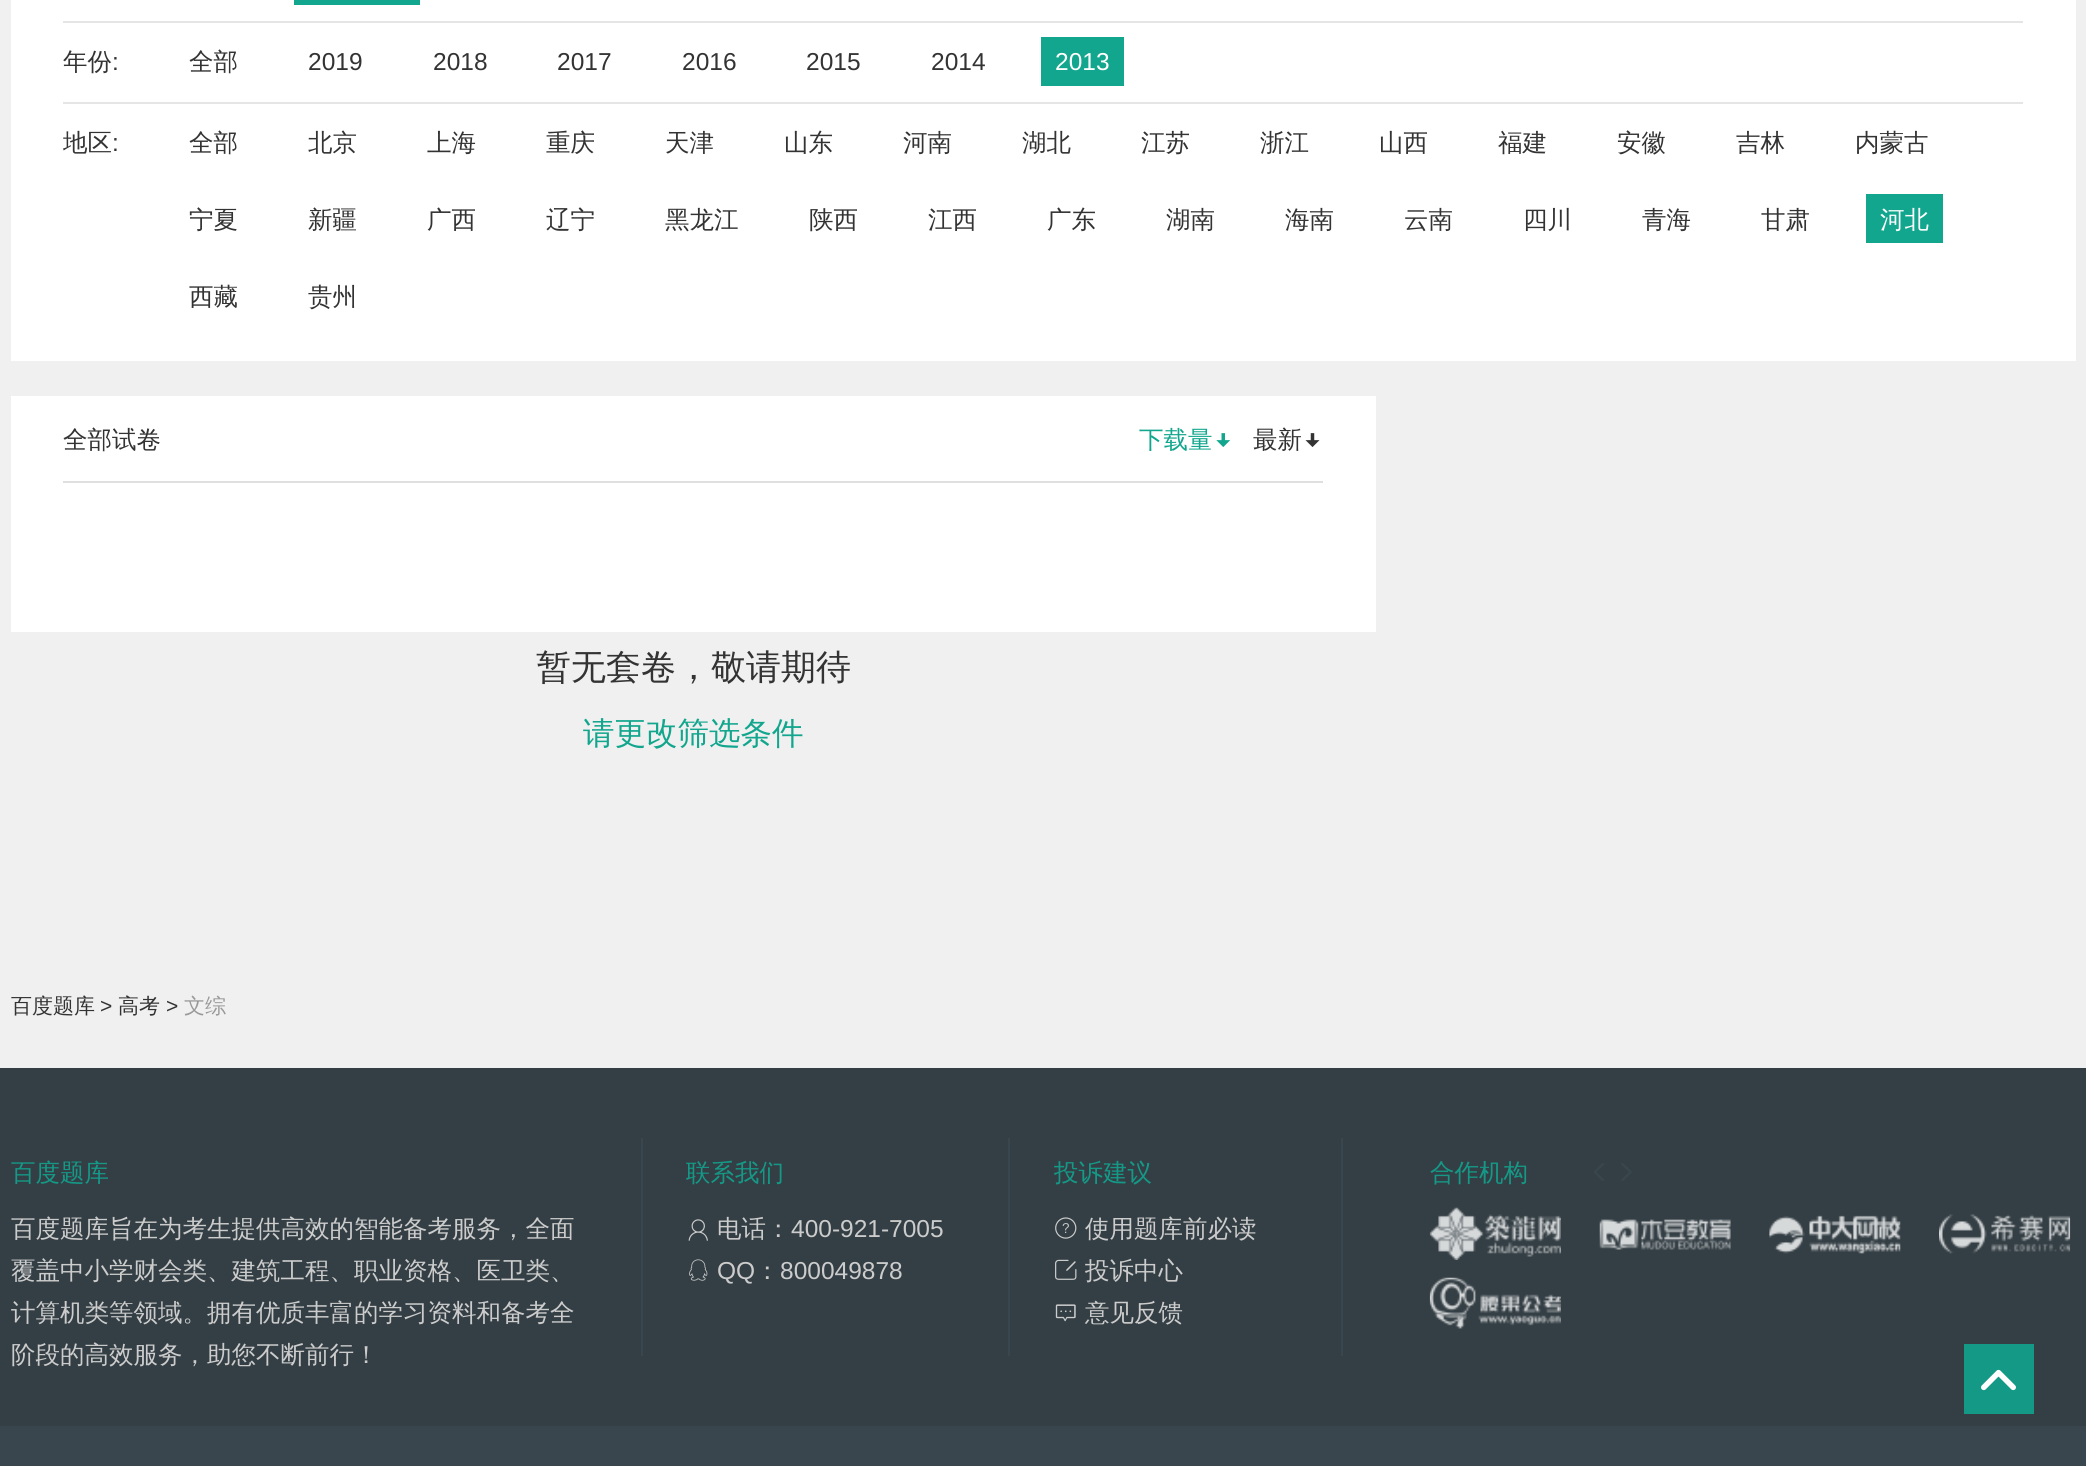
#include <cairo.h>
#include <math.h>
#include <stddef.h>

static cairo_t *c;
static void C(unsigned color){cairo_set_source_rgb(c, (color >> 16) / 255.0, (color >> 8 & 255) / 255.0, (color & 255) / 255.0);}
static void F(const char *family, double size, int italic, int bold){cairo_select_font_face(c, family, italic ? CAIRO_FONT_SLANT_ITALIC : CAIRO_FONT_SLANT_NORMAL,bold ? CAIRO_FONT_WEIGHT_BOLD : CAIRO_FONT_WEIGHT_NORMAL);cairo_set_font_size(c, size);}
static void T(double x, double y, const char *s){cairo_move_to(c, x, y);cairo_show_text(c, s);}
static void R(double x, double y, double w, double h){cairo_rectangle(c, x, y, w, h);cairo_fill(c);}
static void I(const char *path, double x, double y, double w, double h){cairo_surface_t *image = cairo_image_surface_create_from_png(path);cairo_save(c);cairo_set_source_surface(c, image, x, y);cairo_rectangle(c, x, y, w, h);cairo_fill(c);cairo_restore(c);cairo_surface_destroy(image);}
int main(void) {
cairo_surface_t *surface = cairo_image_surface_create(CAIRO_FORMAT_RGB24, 2086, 1466);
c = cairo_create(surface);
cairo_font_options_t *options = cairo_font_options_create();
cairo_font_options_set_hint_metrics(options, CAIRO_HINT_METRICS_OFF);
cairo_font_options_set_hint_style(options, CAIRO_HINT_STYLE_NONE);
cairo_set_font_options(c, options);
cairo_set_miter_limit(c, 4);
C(0xf0f0f0);
cairo_paint(c);
C(0xffffff);
R(11,0,2065,361);
C(0xe5e5e5);
R(63,21,1960,2);
C(0x11a68d);
R(294,0,126,5);
C(0xe5e5e5);
R(63,102,1960,2);
F("WenQuanYi Zen Hei Medium",24.5,0,0);
C(0x333333);
T(63,70,"年份");
F("Liberation Sans",24.5,0,0);
T(112,70,":");
F("WenQuanYi Zen Hei Medium",24.5,0,0);
T(189,70,"全部");
F("Liberation Sans",24.5,0,0);
T(308,70,"2019");
T(433,70,"2018");
T(557,70,"2017");
T(682,70,"2016");
T(806,70,"2015");
T(931,70,"2014");
C(0x11a68d);
R(1041,37,83,49);
C(0xffffff);
T(1055,70,"2013");
F("WenQuanYi Zen Hei Medium",24.5,0,0);
C(0x333333);
T(63,151,"地区");
F("Liberation Sans",24.5,0,0);
T(112,151,":");
F("WenQuanYi Zen Hei Medium",24.5,0,0);
T(189,151,"全部");
T(308,151,"北京");
T(427,151,"上海");
T(546,151,"重庆");
T(665,151,"天津");
T(784,151,"山东");
T(903,151,"河南");
T(1022,151,"湖北");
T(1141,151,"江苏");
T(1260,151,"浙江");
T(1379,151,"山西");
T(1498,151,"福建");
T(1617,151,"安徽");
T(1736,151,"吉林");
T(1855,151,"内蒙古");
T(189,228,"宁夏");
T(308,228,"新疆");
T(427,228,"广西");
T(546,228,"辽宁");
T(665,228,"黑龙江");
T(809,228,"陕西");
T(928,228,"江西");
T(1047,228,"广东");
T(1166,228,"湖南");
T(1285,228,"海南");
T(1404,228,"云南");
T(1523,228,"四川");
T(1642,228,"青海");
T(1761,228,"甘肃");
C(0x11a68d);
R(1866,194,77,49);
C(0xffffff);
T(1880,228,"河北");
C(0x333333);
T(189,305,"西藏");
T(308,305,"贵州");
C(0xffffff);
R(11,396,1365,236);
C(0xe0e0e0);
R(63,481,1260,2);
C(0x333333);
T(63,448,"全部试卷");
C(0x11a68d);
T(1139,448,"下载量");
I("1.png",1216,433,15,14);
C(0x333333);
T(1253,448,"最新");
I("2.png",1305,433,15,14);
F("WenQuanYi Zen Hei Medium",35,0,0);
T(536,679,"暂无套卷，敬请期待");
F("WenQuanYi Zen Hei Medium",31.5,0,0);
C(0x11a68d);
T(583,744,"请更改筛选条件");
C(0x343f45);
R(0,1068,2086,358);
C(0x149987);
R(1964,1344,70,70);
I("3.png",1981,1369,35,22);
F("WenQuanYi Zen Hei Medium",21,0,0);
C(0x333333);
T(11,1013,"百度题库");
F("Liberation Sans",21,0,0);
T(100,1013,">");
F("WenQuanYi Zen Hei Medium",21,0,0);
T(118,1013,"高考");
F("Liberation Sans",21,0,0);
T(166,1013,">");
F("WenQuanYi Zen Hei Medium",21,0,0);
C(0x999999);
T(184,1013,"文综");
C(0x39464d);
R(641,1138,2,218);
F("WenQuanYi Zen Hei Medium",24.5,0,0);
C(0x149987);
T(11,1181,"百度题库");
C(0xcccccc);
T(11,1237,"百度题库旨在为考生提供高效的智能备考服务，全面");
T(11,1279,"覆盖中小学财会类、建筑工程、职业资格、医卫类、");
T(11,1321,"计算机类等领域。拥有优质丰富的学习资料和备考全");
T(11,1363,"阶段的高效服务，助您不断前行！");
C(0x39464d);
R(1008,1138,2,218);
C(0x149987);
T(686,1181,"联系我们");
I("4.png",688,1219,20,22);
C(0xcccccc);
T(717,1237,"电话：");
F("Liberation Sans",24.5,0,0);
T(791,1237,"400-921-7005");
I("5.png",689,1259,19,22);
T(717,1279,"QQ");
F("WenQuanYi Zen Hei Medium",24.5,0,0);
T(755,1279,"：");
F("Liberation Sans",24.5,0,0);
T(780,1279,"800049878");
C(0x39464d);
R(1341,1138,2,218);
F("WenQuanYi Zen Hei Medium",24.5,0,0);
C(0x149987);
T(1054,1181,"投诉建议");
I("6.png",1055,1217,22,22);
C(0xcccccc);
T(1085,1237,"使用题库前必读");
I("7.png",1055,1259,22,21);
T(1085,1279,"投诉中心");
I("8.png",1055,1304,21,18);
T(1085,1321,"意见反馈");
C(0x149987);
T(1430,1181,"合作机构");
I("9.png",1594,1163,10,18);
I("10.png",1621,1163,11,18);
I("11.png",1429,1207,132,53);
I("12.png",1599,1219,132,31);
I("13.png",1769,1215,132,39);
I("14.png",1939,1214,132,40);
I("15.png",1429,1277,132,52);
C(0x39464d);
R(0,1426,2086,40);
cairo_surface_write_to_png(surface, "o.png");
cairo_font_options_destroy(options);
cairo_destroy(c);
cairo_surface_destroy(surface);
return 0;
}
